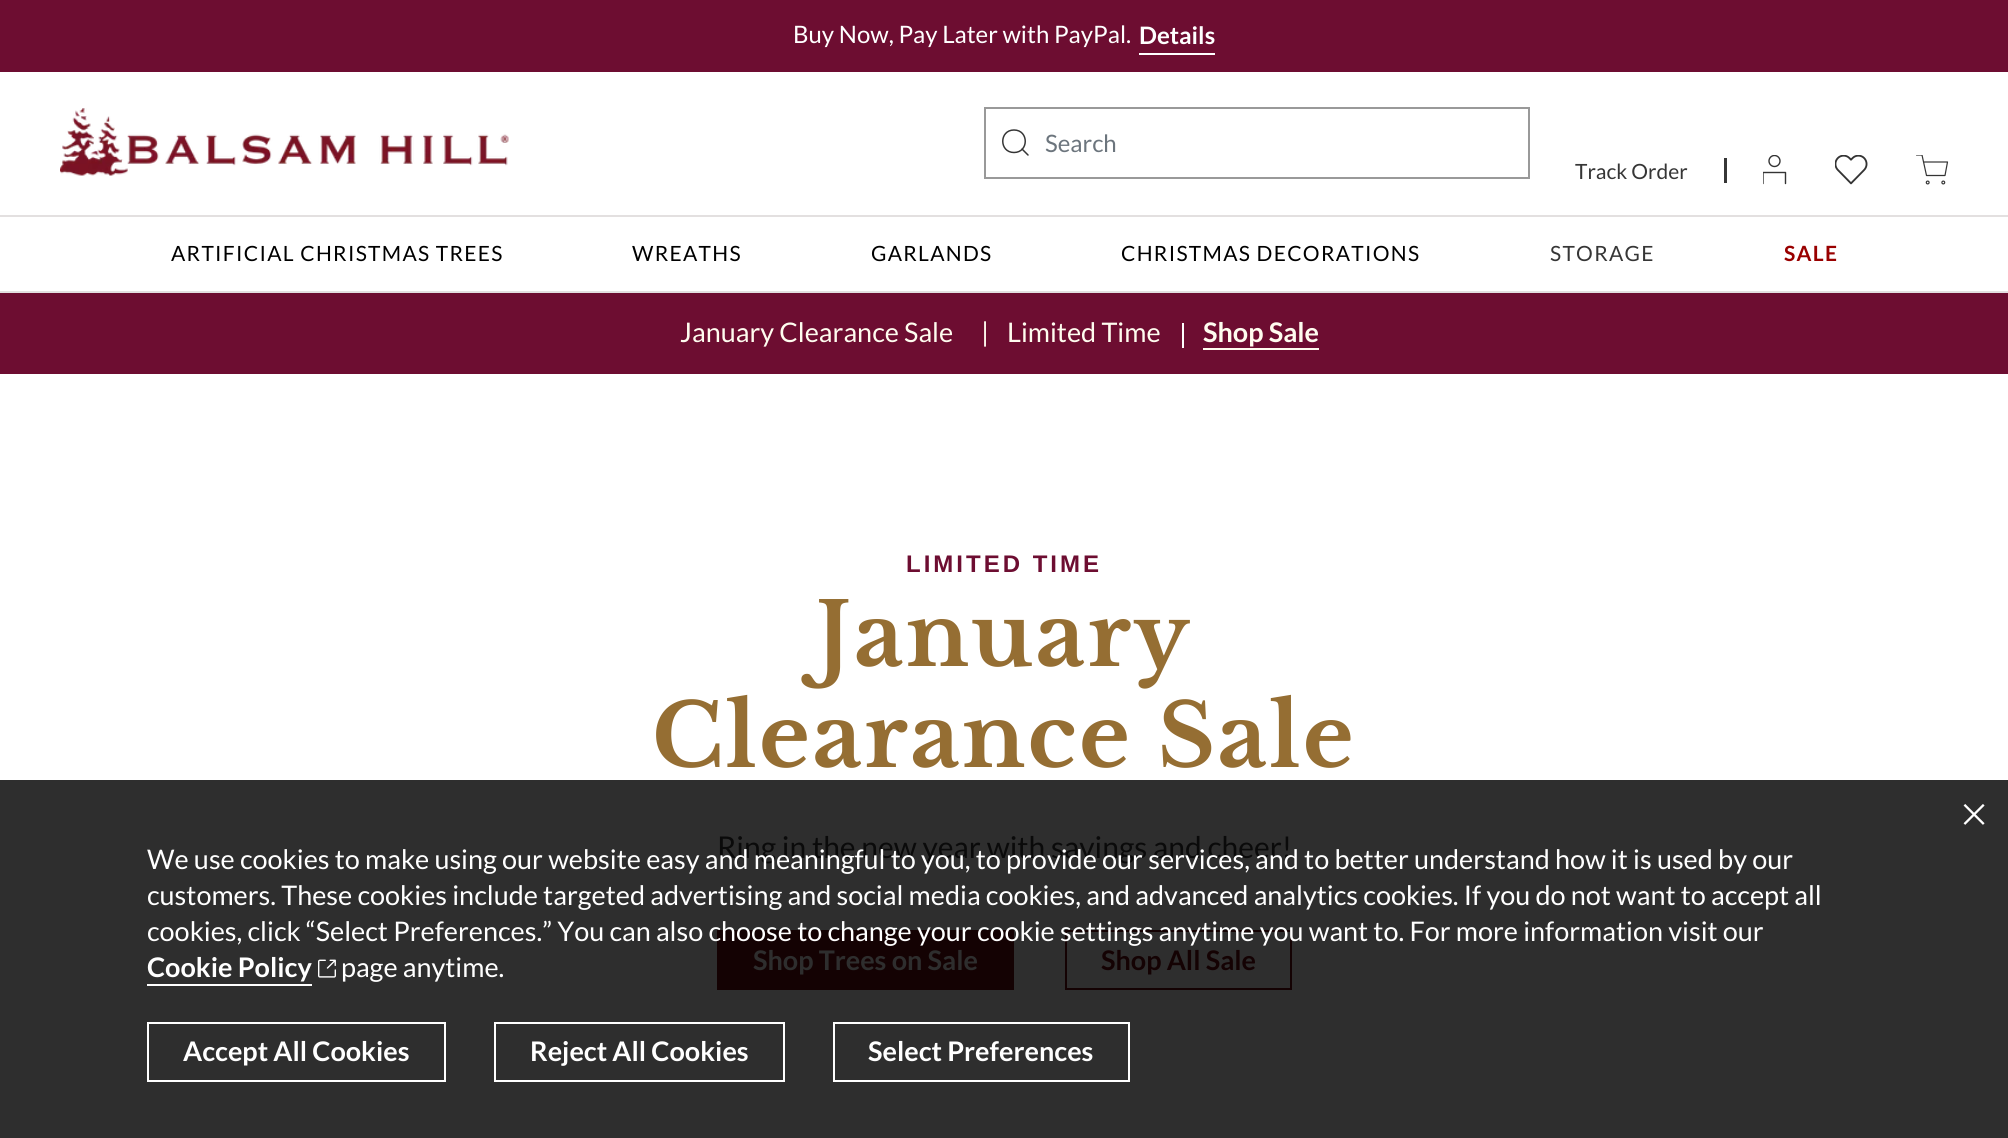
#include <cairo.h>
#include <math.h>
#include <stddef.h>

static cairo_t *c;
static void C(unsigned color){cairo_set_source_rgb(c, (color >> 16) / 255.0, (color >> 8 & 255) / 255.0, (color & 255) / 255.0);}
static void F(const char *family, double size, int italic, int bold){cairo_select_font_face(c, family, italic ? CAIRO_FONT_SLANT_ITALIC : CAIRO_FONT_SLANT_NORMAL,bold ? CAIRO_FONT_WEIGHT_BOLD : CAIRO_FONT_WEIGHT_NORMAL);cairo_set_font_size(c, size);}
static void T(double x, double y, const char *s){cairo_move_to(c, x, y);cairo_show_text(c, s);}
static void L(double x, double y, const char *s, double letter, double word){cairo_move_to(c, x, y);while (*s) {char ch[5] = {0};int n = 0;do ch[n++] = *s++; while ((*s & 0xC0) == 0x80);cairo_show_text(c, ch);cairo_rel_move_to(c, letter + word * (*ch == ' '), 0);}}
static void R(double x, double y, double w, double h){cairo_rectangle(c, x, y, w, h);cairo_fill(c);}
static void I(const char *path, double x, double y, double w, double h){cairo_surface_t *image = cairo_image_surface_create_from_png(path);cairo_save(c);cairo_set_source_surface(c, image, x, y);cairo_rectangle(c, x, y, w, h);cairo_fill(c);cairo_restore(c);cairo_surface_destroy(image);}
int main(void) {
cairo_surface_t *surface = cairo_image_surface_create(CAIRO_FORMAT_RGB24, 2008, 1138);
c = cairo_create(surface);
cairo_font_options_t *options = cairo_font_options_create();
cairo_font_options_set_hint_metrics(options, CAIRO_HINT_METRICS_OFF);
cairo_font_options_set_hint_style(options, CAIRO_HINT_STYLE_NONE);
cairo_set_font_options(c, options);
cairo_set_miter_limit(c, 4);
C(0xffffff);
cairo_paint(c);
C(0x2e2e2e);
R(0,780,2008,358);
C(0x6d0d31);
R(0,0,2008,72);
F("Lato",24,0,0);
C(0xffffff);
T(793,43,"Buy Now, Pay Later with PayPal.");
R(1139,53,76,2);
F("Lato",24,0,1);
T(1139,44,"Details");
C(0xe3e0e0);
R(0,215,2008,2);
I("1.png",60,108,449,68);
cairo_rectangle(c,985,108,544,70);
C(0x999999);
cairo_stroke(c);
cairo_new_path(c);
cairo_move_to(c,1014,152.5);
cairo_curve_to(c,1029,152.5,1029,130,1014,130);
cairo_curve_to(c,999,130,999,152.5,1014,152.5);
cairo_close_path(c);
cairo_move_to(c,1028,155);
cairo_line_to(c,1022,149);
C(0x353535);
cairo_set_line_width(c,1.5);
cairo_set_line_cap(c,CAIRO_LINE_CAP_ROUND);
cairo_set_line_join(c,CAIRO_LINE_JOIN_ROUND);
cairo_stroke(c);
F("Lato",24,0,0);
C(0x6c757d);
T(1045,152,"Search");
C(0x363636);
R(1724,158,3,25);
F("Lato",21,0,0);
T(1575,179,"Track Order");
cairo_save(c);
cairo_rectangle(c,1763,155,24,30);
cairo_clip(c);
cairo_arc(c,1774.5,161,5.5,0,2 * M_PI);
C(0x343434);
cairo_set_line_width(c,1.4);
cairo_set_line_cap(c,CAIRO_LINE_CAP_BUTT);
cairo_set_line_join(c,CAIRO_LINE_JOIN_MITER);
cairo_stroke(c);
cairo_new_path(c);
cairo_move_to(c,1785.5,183.5);
cairo_line_to(c,1785.5,172.5);
cairo_line_to(c,1763,172.5);
cairo_line_to(c,1763,183.5);
cairo_set_line_cap(c,CAIRO_LINE_CAP_ROUND);
cairo_set_line_join(c,CAIRO_LINE_JOIN_ROUND);
cairo_stroke(c);
cairo_restore(c);
I("2.png",1835,155,33,30);
cairo_save(c);
cairo_rectangle(c,1916,155,33,30);
cairo_clip(c);
cairo_new_path(c);
cairo_move_to(c,1916.5,155);
cairo_line_to(c,1922,155);
cairo_line_to(c,1926.5,175.5);
cairo_line_to(c,1945,175.5);
cairo_line_to(c,1947.5,162);
cairo_line_to(c,1923.5,162);
C(0x343434);
cairo_set_line_width(c,1.2);
cairo_stroke(c);
cairo_restore(c);
cairo_arc(c,1927.7,182.5,1.4,0,2 * M_PI);
C(0x343434);
cairo_set_line_width(c,1.2);
cairo_set_line_cap(c,CAIRO_LINE_CAP_BUTT);
cairo_set_line_join(c,CAIRO_LINE_JOIN_MITER);
cairo_stroke(c);
cairo_arc(c,1943.3,182.5,1.4,0,2 * M_PI);
cairo_stroke(c);
C(0xe3e0e0);
R(0,291,2008,2);
C(0x000000);
L(171,261,"ARTIFICIAL CHRISTMAS TREES",1.3,0);
L(632,261,"WREATHS",1.3,0);
L(871,261,"GARLANDS",1.3,0);
L(1121,261,"CHRISTMAS DECORATIONS",1.3,0);
C(0x363636);
L(1550,261,"STORAGE",1.3,0);
F("Lato",21,0,1);
C(0x990000);
L(1784,261,"SALE",1.3,0);
C(0x6d0d31);
R(0,293,2008,81);
F("Lato",27,0,0);
C(0xfffcef);
T(680,342,"January Clearance Sale");
T(981,342,"|");
T(1007,342,"Limited Time");
C(0xffffff);
R(1182,323,2,25);
F("Lato",27,0,1);
C(0xfffcef);
T(1203,342,"Shop Sale");
R(1203,348,116,2);
F("Liberation Sans",24,0,1);
C(0x6d0d31);
L(906,572,"LIMITED TIME",3,0);
F("Libre Baskerville",87,0,1);
C(0x956e33);
L(816,666,"January",2.25,0);
L(652,767,"Clearance Sale",2.25,0);
F("Lato",30,0,0);
C(0x0a0a0a);
T(717,858,"Ring in the new year with savings and cheer!");
C(0x140203);
R(717,930,297,60);
F("Lato",27,0,1);
C(0x2e2e2e);
T(753,970,"Shop Trees on Sale");
cairo_rectangle(c,1066,931,225,58);
C(0x140203);
cairo_set_line_width(c,2);
cairo_stroke(c);
T(1101,970,"Shop All Sale");
I("3.png",1963,804,22,21);
F("Lato",27,0,0);
C(0xffffff);
T(147,869,"We use cookies to make using our website easy and meaningful to you, to provide our services, and to better understand how it is used by our");
T(147,905,"customers. These cookies include targeted advertising and social media cookies, and advanced analytics cookies. If you do not want to accept all");
T(147,941,"cookies, click “Select Preferences.” You can also choose to change your cookie settings anytime you want to. For more information visit our");
F("Lato",27,0,1);
T(147,977,"Cookie Policy");
R(147,984,165,2);
I("4.png",318,959,18,19);
F("Lato",27,0,0);
T(341,977,"page anytime.");
cairo_rectangle(c,148,1023,297,58);
cairo_stroke(c);
F("Lato",27,0,1);
T(183,1061,"Accept All Cookies");
cairo_rectangle(c,495,1023,289,58);
cairo_stroke(c);
T(530,1061,"Reject All Cookies");
cairo_rectangle(c,834,1023,295,58);
cairo_stroke(c);
T(868,1061,"Select Preferences");
cairo_surface_write_to_png(surface, "o.png");
cairo_font_options_destroy(options);
cairo_destroy(c);
cairo_surface_destroy(surface);
return 0;
}
